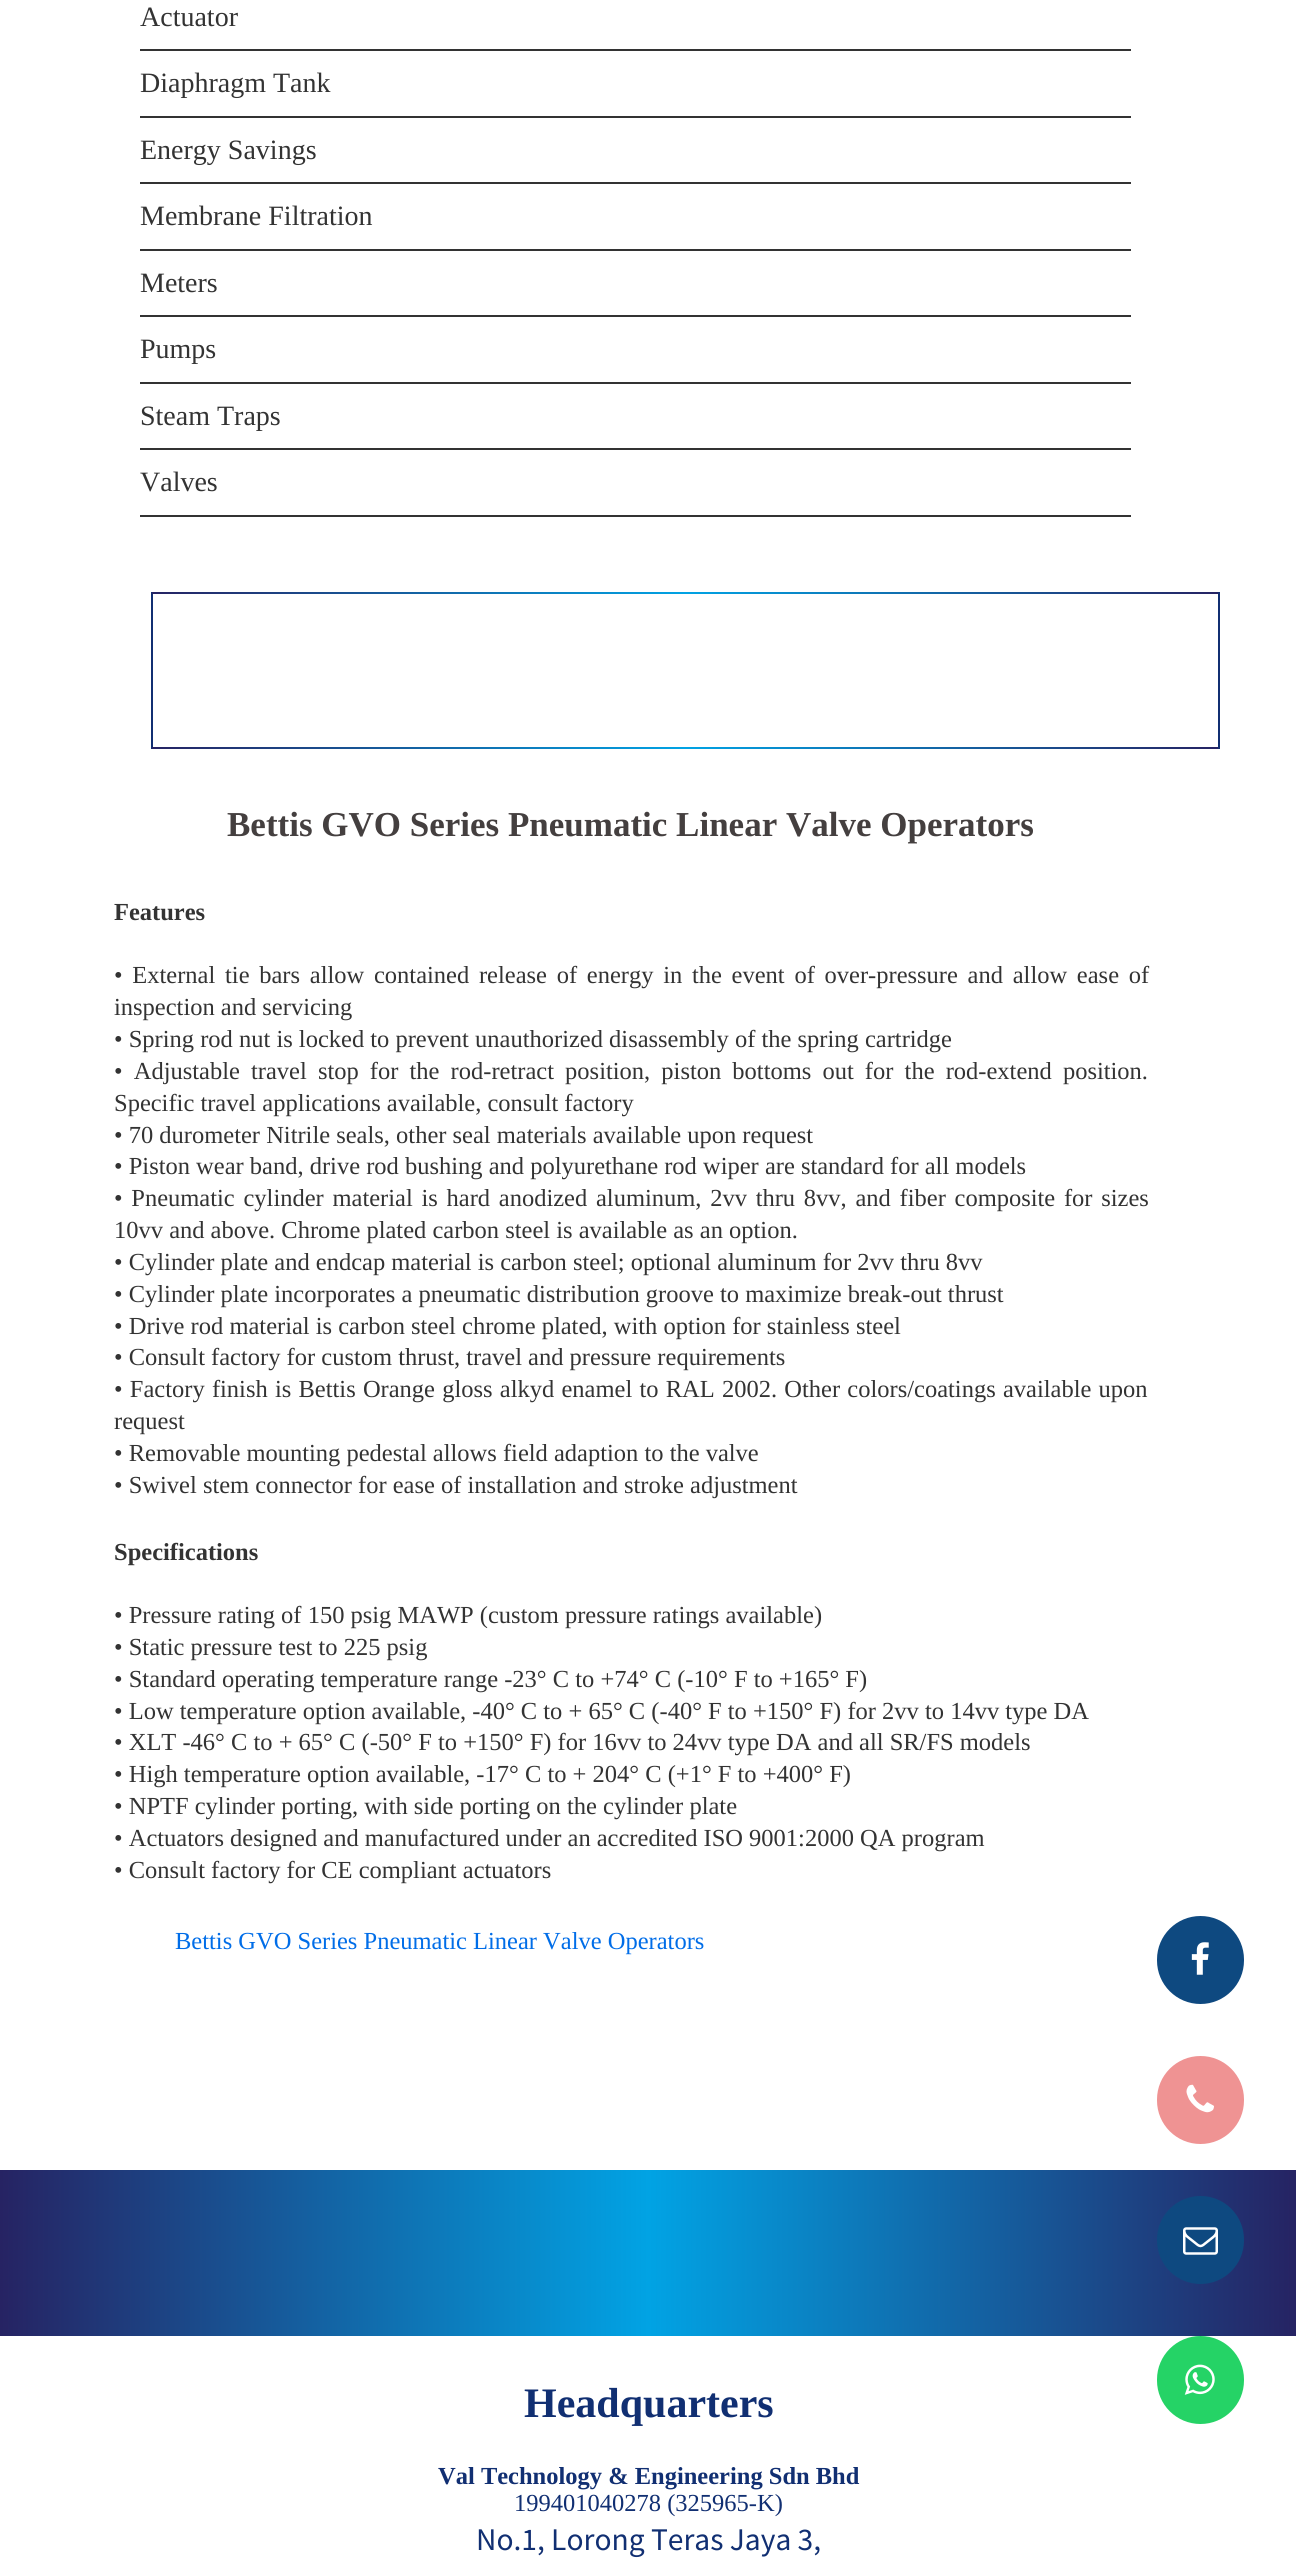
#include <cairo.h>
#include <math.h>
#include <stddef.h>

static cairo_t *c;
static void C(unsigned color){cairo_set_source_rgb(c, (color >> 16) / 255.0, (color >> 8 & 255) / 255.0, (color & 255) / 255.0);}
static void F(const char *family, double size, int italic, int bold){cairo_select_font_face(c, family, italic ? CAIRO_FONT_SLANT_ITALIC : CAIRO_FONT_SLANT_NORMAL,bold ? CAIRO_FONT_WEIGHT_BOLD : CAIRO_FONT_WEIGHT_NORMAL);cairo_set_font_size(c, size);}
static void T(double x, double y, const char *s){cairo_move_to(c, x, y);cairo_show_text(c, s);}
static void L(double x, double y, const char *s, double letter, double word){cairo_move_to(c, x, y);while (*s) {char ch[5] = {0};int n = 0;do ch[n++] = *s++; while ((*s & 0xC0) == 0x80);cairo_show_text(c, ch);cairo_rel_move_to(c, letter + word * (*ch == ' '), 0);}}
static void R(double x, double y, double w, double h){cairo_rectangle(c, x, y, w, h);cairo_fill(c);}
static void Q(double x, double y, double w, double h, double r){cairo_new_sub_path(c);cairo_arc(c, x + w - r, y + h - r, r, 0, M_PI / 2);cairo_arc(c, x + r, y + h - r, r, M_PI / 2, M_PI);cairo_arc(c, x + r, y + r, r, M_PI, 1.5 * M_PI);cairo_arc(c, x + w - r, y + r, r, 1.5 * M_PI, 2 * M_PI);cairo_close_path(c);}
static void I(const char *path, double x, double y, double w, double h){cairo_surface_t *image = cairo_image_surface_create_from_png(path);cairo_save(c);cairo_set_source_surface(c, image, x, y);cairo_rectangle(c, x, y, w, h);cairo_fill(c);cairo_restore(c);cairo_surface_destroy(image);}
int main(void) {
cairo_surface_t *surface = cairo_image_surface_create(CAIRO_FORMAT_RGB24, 1296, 2563);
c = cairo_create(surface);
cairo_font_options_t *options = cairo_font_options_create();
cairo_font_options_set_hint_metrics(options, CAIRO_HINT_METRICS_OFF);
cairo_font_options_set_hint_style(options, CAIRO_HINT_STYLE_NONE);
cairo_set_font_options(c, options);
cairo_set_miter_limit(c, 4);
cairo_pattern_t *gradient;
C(0xffffff);
cairo_paint(c);
C(0x333333);
R(140,49,991,2);
F("Liberation Serif",28,0,0);
T(140,26,"Actuator");
R(140,116,991,2);
T(140,92,"Diaphragm Tank");
R(140,182,991,2);
T(140,159,"Energy Savings");
R(140,249,991,2);
T(140,225,"Membrane Filtration");
R(140,315,991,2);
T(140,292,"Meters");
R(140,382,991,2);
T(140,358,"Pumps");
R(140,448,991,2);
T(140,425,"Steam Traps");
R(140,515,991,2);
T(140,491,"Valves");
C(0x112f72);
R(1218,592,2,157);
R(151,592,2,157);
gradient = cairo_pattern_create_linear(152,592,1218,592);
cairo_pattern_add_color_stop_rgba(gradient,0,0.149,0.137,0.388,1);
cairo_pattern_add_color_stop_rgba(gradient,.5,0.004,0.639,0.894,1);
cairo_pattern_add_color_stop_rgba(gradient,1,0.149,0.137,0.388,1);
cairo_set_source(c,gradient);
cairo_pattern_destroy(gradient);
R(152,592,1066,2);
gradient = cairo_pattern_create_linear(152,748,1218,748);
cairo_pattern_add_color_stop_rgba(gradient,0,0.149,0.137,0.388,1);
cairo_pattern_add_color_stop_rgba(gradient,.5,0.004,0.639,0.894,1);
cairo_pattern_add_color_stop_rgba(gradient,1,0.149,0.137,0.388,1);
cairo_set_source(c,gradient);
cairo_pattern_destroy(gradient);
R(152,747,1066,2);
F("Liberation Serif",35,0,1);
C(0x443f3f);
T(227,836,"Bettis GVO Series Pneumatic Linear Valve Operators");
F("Liberation Serif",24.5,0,1);
C(0x333333);
T(114,920,"Features");
F("Liberation Serif",24.5,0,0);
L(114,983,"• External tie bars allow contained release of energy in the event of over-pressure and allow ease of",0,3.6);
T(114,1015,"inspection and servicing");
T(114,1047,"• Spring rod nut is locked to prevent unauthorized disassembly of the spring cartridge");
L(114,1079,"• Adjustable travel stop for the rod-retract position, piston bottoms out for the rod-extend position.",0,5);
T(114,1111,"Specific travel applications available, consult factory");
T(114,1143,"• 70 durometer Nitrile seals, other seal materials available upon request");
T(114,1174,"• Piston wear band, drive rod bushing and polyurethane rod wiper are standard for all models");
L(114,1206,"• Pneumatic cylinder material is hard anodized aluminum, 2vv thru 8vv, and fiber composite for sizes",0,2.6);
T(114,1238,"10vv and above. Chrome plated carbon steel is available as an option.");
T(114,1270,"• Cylinder plate and endcap material is carbon steel; optional aluminum for 2vv thru 8vv");
T(114,1302,"• Cylinder plate incorporates a pneumatic distribution groove to maximize break-out thrust");
T(114,1334,"• Drive rod material is carbon steel chrome plated, with option for stainless steel");
T(114,1365,"• Consult factory for custom thrust, travel and pressure requirements");
L(114,1397,"• Factory finish is Bettis Orange gloss alkyd enamel to RAL 2002. Other colors/coatings available upon",0,1.1);
T(114,1429,"request");
T(114,1461,"• Removable mounting pedestal allows field adaption to the valve");
T(114,1493,"• Swivel stem connector for ease of installation and stroke adjustment");
F("Liberation Serif",24.5,0,1);
T(114,1560,"Specifications");
F("Liberation Serif",24.5,0,0);
T(114,1623,"• Pressure rating of 150 psig MAWP (custom pressure ratings available)");
T(114,1655,"• Static pressure test to 225 psig");
T(114,1687,"• Standard operating temperature range -23° C to +74° C (-10° F to +165° F)");
T(114,1719,"• Low temperature option available, -40° C to + 65° C (-40° F to +150° F) for 2vv to 14vv type DA");
T(114,1750,"• XLT -46° C to + 65° C (-50° F to +150° F) for 16vv to 24vv type DA and all SR/FS models");
T(114,1782,"• High temperature option available, -17° C to + 204° C (+1° F to +400° F)");
T(114,1814,"• NPTF cylinder porting, with side porting on the cylinder plate");
T(114,1846,"• Actuators designed and manufactured under an accredited ISO 9001:2000 QA program");
T(114,1878,"• Consult factory for CE compliant actuators");
C(0x006de8);
T(175,1949,"Bettis GVO Series Pneumatic Linear Valve Operators");
gradient = cairo_pattern_create_linear(0,2253,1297,2253);
cairo_pattern_add_color_stop_rgba(gradient,0,0.149,0.137,0.388,1);
cairo_pattern_add_color_stop_rgba(gradient,.5,0.004,0.639,0.894,1);
cairo_pattern_add_color_stop_rgba(gradient,1,0.149,0.137,0.388,1);
cairo_set_source(c,gradient);
cairo_pattern_destroy(gradient);
R(0,2170,1296,166);
C(0x0e4980);
Q(1157,1916,87,88,43.5);
cairo_fill(c);
I("1.png",1191,1942,18,33);
C(0xef9393);
Q(1157,2056,87,88,43.5);
cairo_fill(c);
I("2.png",1186,2084,28,29);
C(0x0e4980);
Q(1157,2196,87,88,43.5);
cairo_fill(c);
I("3.png",1183,2227,35,28);
F("Liberation Serif",42,0,1);
C(0x112f72);
T(524,2417,"Headquarters");
F("Liberation Serif",24.5,0,1);
T(438,2484,"Val Technology & Engineering Sdn Bhd");
F("Liberation Serif",24.5,0,0);
T(514,2511,"199401040278 (325965-K)");
F("Source Sans Pro",31.5,0,0);
T(476,2550,"No.1, Lorong Teras Jaya 3,");
C(0x25d366);
Q(1157,2336,87,88,43.5);
cairo_fill(c);
I("4.png",1184,2364,31,31);
cairo_surface_write_to_png(surface, "o.png");
cairo_font_options_destroy(options);
cairo_destroy(c);
cairo_surface_destroy(surface);
return 0;
}
